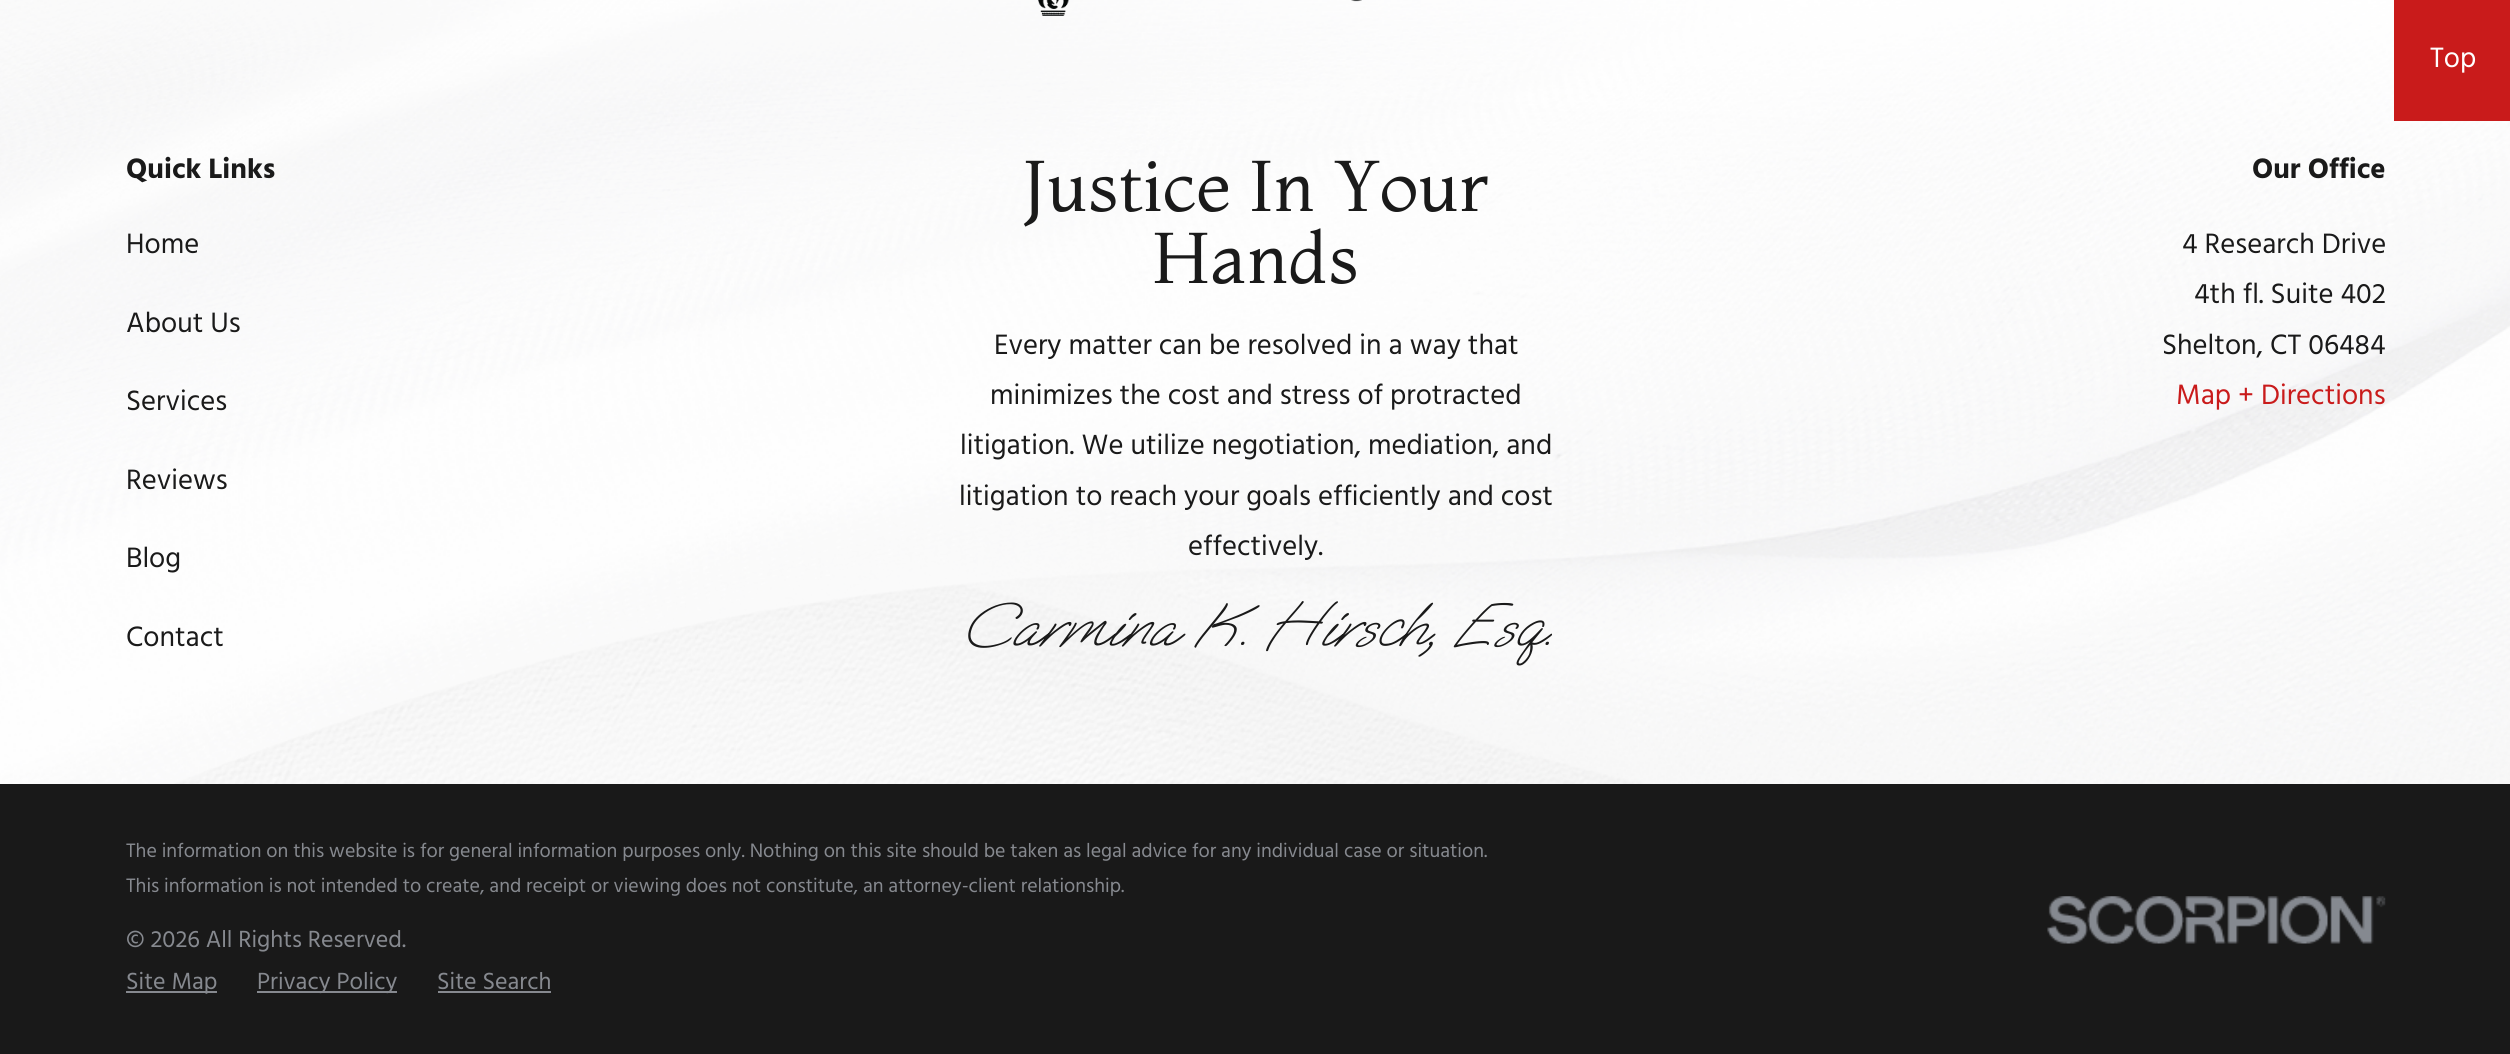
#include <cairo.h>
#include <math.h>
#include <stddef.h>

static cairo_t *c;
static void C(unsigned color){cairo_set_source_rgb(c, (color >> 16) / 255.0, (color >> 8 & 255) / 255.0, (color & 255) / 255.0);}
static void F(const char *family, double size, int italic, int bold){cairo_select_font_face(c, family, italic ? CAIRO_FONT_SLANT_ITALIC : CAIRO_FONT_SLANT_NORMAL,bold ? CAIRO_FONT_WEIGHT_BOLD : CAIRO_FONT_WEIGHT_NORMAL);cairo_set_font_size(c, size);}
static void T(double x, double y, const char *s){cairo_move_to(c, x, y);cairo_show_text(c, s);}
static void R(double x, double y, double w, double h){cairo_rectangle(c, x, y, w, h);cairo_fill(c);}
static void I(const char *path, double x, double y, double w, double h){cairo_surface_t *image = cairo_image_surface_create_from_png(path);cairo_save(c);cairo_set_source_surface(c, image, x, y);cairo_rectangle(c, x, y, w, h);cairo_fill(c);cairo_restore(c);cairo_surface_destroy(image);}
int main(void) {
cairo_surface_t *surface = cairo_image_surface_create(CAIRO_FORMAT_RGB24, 2510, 1054);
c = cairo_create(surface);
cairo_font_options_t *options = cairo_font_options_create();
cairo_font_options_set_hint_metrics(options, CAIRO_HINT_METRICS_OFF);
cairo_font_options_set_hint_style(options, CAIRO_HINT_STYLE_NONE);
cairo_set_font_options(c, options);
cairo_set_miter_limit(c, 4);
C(0xffffff);
cairo_paint(c);
I("1.png",0,0,2510,784);
C(0xc91b1b);
R(2394,0,116,121);
F("Hind",28.75,0,0);
C(0xffffff);
T(2430,67,"Top");
I("2.png",1038,0,324,16);
F("Hind",28.75,0,1);
C(0x1a1a1a);
T(126,178,"Quick Links");
F("Hind",28.75,0,0);
T(126,253,"Home");
T(126,332,"About Us");
T(126,410,"Services");
T(126,489,"Reviews");
T(126,567,"Blog");
T(126,646,"Contact");
F("Montaga",71.75,0,0);
T(1023,211,"Justice In Your");
T(1152,283,"Hands");
F("Hind",28.75,0,0);
T(994,354,"Every matter can be resolved in a way that");
T(990,404,"minimizes the cost and stress of protracted");
T(960,454,"litigation. We utilize negotiation, mediation, and");
T(959,505,"litigation to reach your goals efficiently and cost");
T(1188,555,"effectively.");
F("Oooh Baby",63.25,1,0);
T(960,645,"Carmina K. Hirsch, Esq.");
F("Hind",28.75,0,1);
T(2252,178,"Our Office");
F("Hind",28.75,0,0);
T(2182,253,"4 Research Drive");
T(2194,303,"4th fl. Suite 402");
T(2162,354,"Shelton, CT 06484");
C(0xc91b1b);
T(2176,404,"Map + Directions");
C(0x191919);
R(0,784,2510,270);
F("Hind",19.95,0,0);
C(0x86898f);
T(126,857,"The information on this website is for general information purposes only. Nothing on this site should be taken as legal advice for any individual case or situation.");
T(126,892,"This information is not intended to create, and receipt or viewing does not constitute, an attorney-client relationship.");
F("Hind",24,0,0);
T(126,947,"© 2026 All Rights Reserved.");
R(126,991,91,2);
T(126,989,"Site Map");
R(257,991,140,2);
T(257,989,"Privacy Policy");
T(437,989,"Site Search");
R(438,991,113,2);
I("3.png",2047,896,339,48);
cairo_surface_write_to_png(surface, "o.png");
cairo_font_options_destroy(options);
cairo_destroy(c);
cairo_surface_destroy(surface);
return 0;
}
